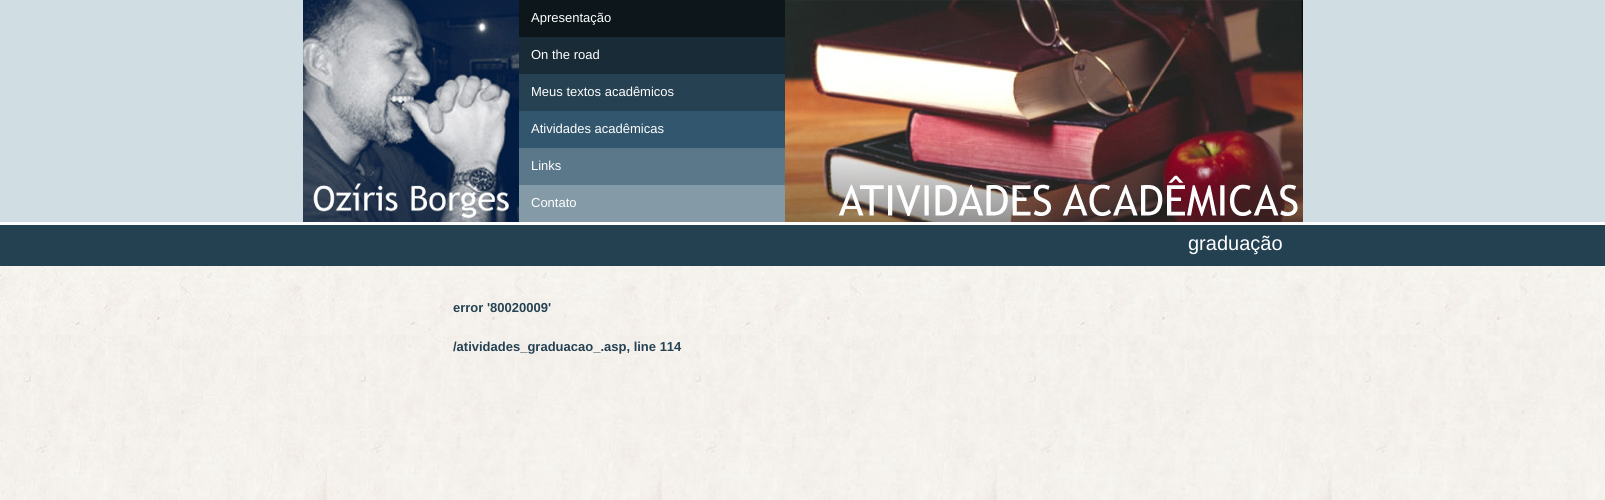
#include <cairo.h>
#include <math.h>
#include <stddef.h>

static cairo_t *c;
static void C(unsigned color){cairo_set_source_rgb(c, (color >> 16) / 255.0, (color >> 8 & 255) / 255.0, (color & 255) / 255.0);}
static void F(const char *family, double size, int italic, int bold){cairo_select_font_face(c, family, italic ? CAIRO_FONT_SLANT_ITALIC : CAIRO_FONT_SLANT_NORMAL,bold ? CAIRO_FONT_WEIGHT_BOLD : CAIRO_FONT_WEIGHT_NORMAL);cairo_set_font_size(c, size);}
static void T(double x, double y, const char *s){cairo_move_to(c, x, y);cairo_show_text(c, s);}
static void R(double x, double y, double w, double h){cairo_rectangle(c, x, y, w, h);cairo_fill(c);}
static void I(const char *path, double x, double y, double w, double h){cairo_surface_t *image = cairo_image_surface_create_from_png(path);cairo_save(c);cairo_set_source_surface(c, image, x, y);cairo_rectangle(c, x, y, w, h);cairo_fill(c);cairo_restore(c);cairo_surface_destroy(image);}
int main(void) {
cairo_surface_t *surface = cairo_image_surface_create(CAIRO_FORMAT_RGB24, 1605, 500);
c = cairo_create(surface);
cairo_font_options_t *options = cairo_font_options_create();
cairo_font_options_set_hint_metrics(options, CAIRO_HINT_METRICS_OFF);
cairo_font_options_set_hint_style(options, CAIRO_HINT_STYLE_NONE);
cairo_set_font_options(c, options);
cairo_set_miter_limit(c, 4);
C(0xffffff);
cairo_paint(c);
I("1.png",0,266,1605,234);
I("2.png",0,0,1605,225);
I("3.png",303,0,216,222);
C(0x0d161b);
R(519,0,266,37);
F("Liberation Sans",13,0,0);
C(0xffffff);
T(531,22,"Apresentação");
C(0x192b37);
R(519,37,266,37);
C(0xffffff);
T(531,59,"On the road");
C(0x264152);
R(519,74,266,37);
C(0xffffff);
T(531,96,"Meus textos acadêmicos");
C(0x32566e);
R(519,111,266,37);
C(0xffffff);
T(531,133,"Atividades acadêmicas");
C(0x5b788a);
R(519,148,266,37);
C(0xffffff);
T(531,170,"Links");
C(0x849aa7);
R(519,185,266,37);
C(0xffffff);
T(531,207,"Contato");
I("4.png",785,0,518,222);
C(0x244152);
R(0,225,1605,41);
F("Liberation Sans",20,0,0);
C(0xffffff);
T(1188,250,"graduação");
F("Liberation Sans",13,0,1);
C(0x254152);
T(453,312,"error '80020009'");
T(453,351,"/atividades_graduacao_.asp, line 114");
cairo_surface_write_to_png(surface, "o.png");
cairo_font_options_destroy(options);
cairo_destroy(c);
cairo_surface_destroy(surface);
return 0;
}
